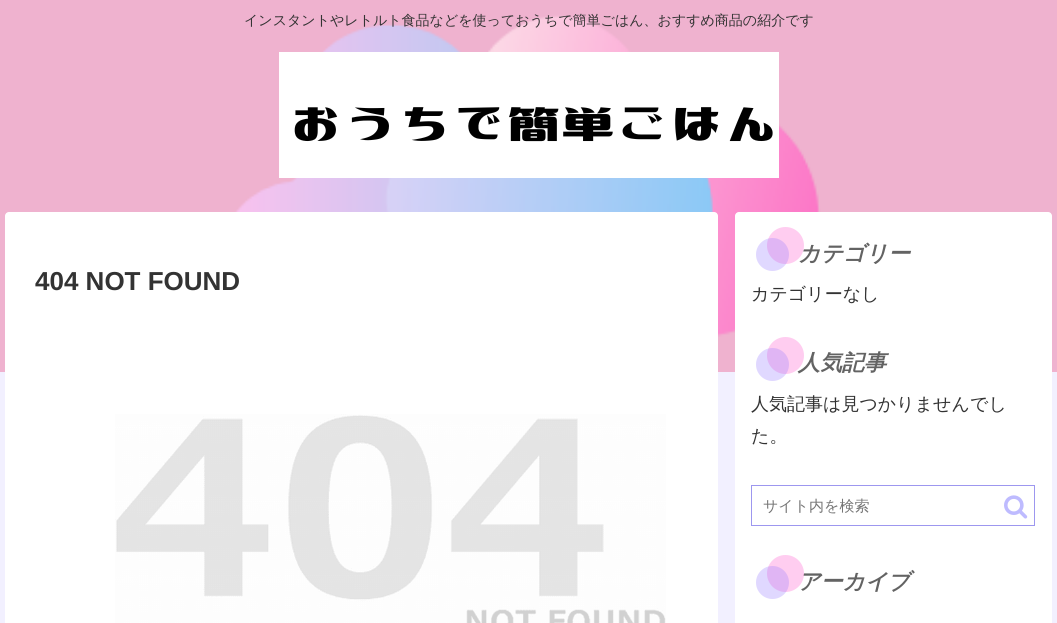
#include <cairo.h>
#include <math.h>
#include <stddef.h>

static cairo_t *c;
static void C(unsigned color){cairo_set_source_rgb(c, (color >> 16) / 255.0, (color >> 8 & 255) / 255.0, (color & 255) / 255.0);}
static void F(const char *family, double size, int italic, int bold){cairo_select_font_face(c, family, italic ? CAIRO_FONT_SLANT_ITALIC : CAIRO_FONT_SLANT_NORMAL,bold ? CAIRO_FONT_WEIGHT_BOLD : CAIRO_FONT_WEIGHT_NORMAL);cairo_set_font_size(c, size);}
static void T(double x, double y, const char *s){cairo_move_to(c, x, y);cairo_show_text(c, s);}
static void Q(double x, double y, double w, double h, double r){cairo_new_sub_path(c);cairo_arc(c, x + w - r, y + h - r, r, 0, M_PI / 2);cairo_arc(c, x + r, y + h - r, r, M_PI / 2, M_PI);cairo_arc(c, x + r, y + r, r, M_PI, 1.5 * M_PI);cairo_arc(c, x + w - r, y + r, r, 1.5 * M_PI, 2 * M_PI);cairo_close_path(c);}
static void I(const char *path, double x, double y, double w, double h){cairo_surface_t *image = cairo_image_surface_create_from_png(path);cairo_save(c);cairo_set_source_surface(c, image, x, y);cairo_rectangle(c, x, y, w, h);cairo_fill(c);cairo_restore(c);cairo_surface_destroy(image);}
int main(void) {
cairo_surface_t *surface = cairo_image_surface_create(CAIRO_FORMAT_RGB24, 1057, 623);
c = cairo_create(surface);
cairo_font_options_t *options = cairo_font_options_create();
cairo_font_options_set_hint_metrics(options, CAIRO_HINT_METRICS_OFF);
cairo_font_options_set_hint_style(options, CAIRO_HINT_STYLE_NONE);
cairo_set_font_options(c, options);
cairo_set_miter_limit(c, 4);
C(0xf2f0ff);
cairo_paint(c);
I("1.png",0,188,1057,184);
I("2.png",0,0,1057,188);
F("WenQuanYi Zen Hei Medium",14,0,0);
C(0x333333);
T(244,25,"インスタントやレトルト食品などを使っておうちで簡単ごはん、おすすめ商品の紹介です");
I("3.png",279,52,500,126);
C(0xffffff);
Q(5,212,713,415,4);
cairo_fill(c);
F("Liberation Sans",26,0,1);
C(0x333333);
T(35,290,"404 NOT FOUND");
I("4.png",115,414,551,209);
C(0xffffff);
Q(735,212,317,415,4);
cairo_fill(c);
F("WenQuanYi Zen Hei",22,1,1);
C(0x636363);
T(798,261,"カテゴリー");
C(0xffcdf0);
cairo_new_path(c);
cairo_arc(c,785.5,245.5,18.5,0,2 * M_PI);
cairo_fill(c);
cairo_set_source_rgba(c,0.588,0.486,1,0.3);
cairo_arc(c,772.5,254.5,16.5,0,2 * M_PI);
cairo_fill(c);
F("WenQuanYi Zen Hei Medium",18,0,0);
C(0x333333);
T(751,300,"カテゴリーなし");
F("WenQuanYi Zen Hei",22,1,1);
C(0x636363);
T(798,370,"人気記事");
C(0xffcdf0);
cairo_new_path(c);
cairo_arc(c,785.5,355.5,18.5,0,2 * M_PI);
cairo_fill(c);
cairo_set_source_rgba(c,0.588,0.486,1,0.3);
cairo_arc(c,772.5,364.5,16.5,0,2 * M_PI);
cairo_fill(c);
F("WenQuanYi Zen Hei Medium",18,0,0);
C(0x333333);
T(751,410,"人気記事は見つかりませんでし");
T(751,442,"た。");
cairo_rectangle(c,751.5,485.5,283,40);
C(0x9d97ef);
cairo_set_line_width(c,1);
cairo_stroke(c);
F("WenQuanYi Zen Hei Medium",15,0,0);
C(0x757575);
T(763,511,"サイト内を検索");
I("5.png",1004,495,24,24);
F("WenQuanYi Zen Hei",22,1,1);
C(0x636363);
T(798,589,"アーカイブ");
cairo_set_source_rgba(c,1,0.345,0.8,0.3);
cairo_new_path(c);
cairo_arc(c,785.5,573.5,18.5,0,2 * M_PI);
cairo_fill(c);
cairo_set_source_rgba(c,0.588,0.486,1,0.3);
cairo_arc(c,772.5,582.5,16.5,0,2 * M_PI);
cairo_fill(c);
cairo_surface_write_to_png(surface, "o.png");
cairo_font_options_destroy(options);
cairo_destroy(c);
cairo_surface_destroy(surface);
return 0;
}
